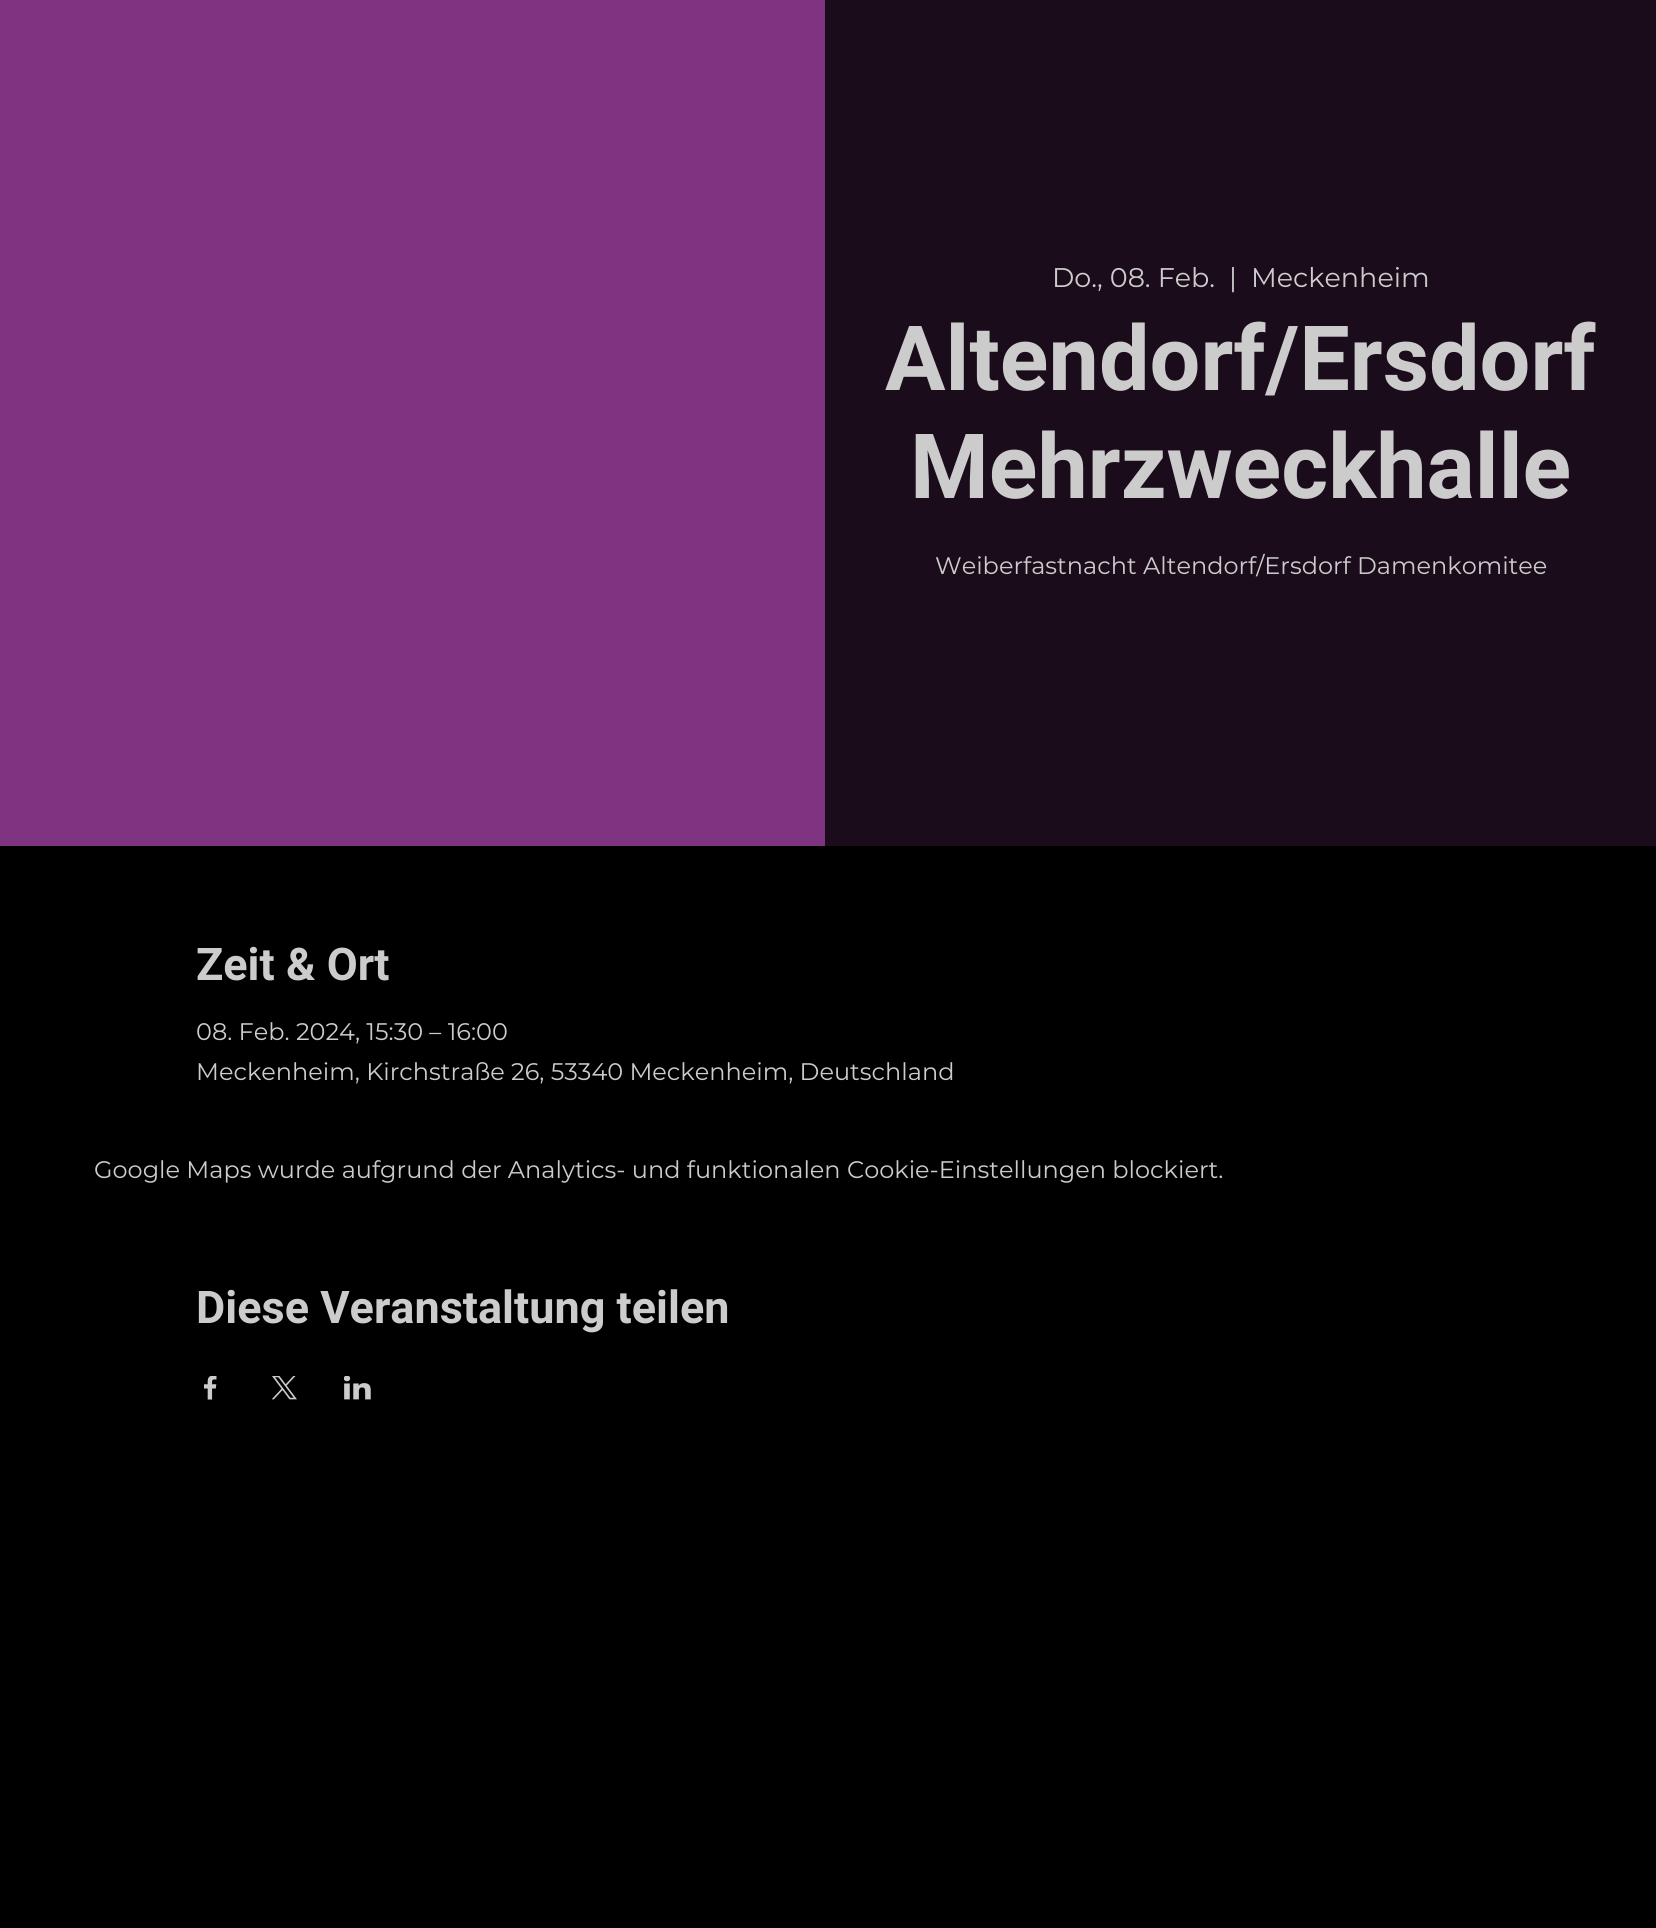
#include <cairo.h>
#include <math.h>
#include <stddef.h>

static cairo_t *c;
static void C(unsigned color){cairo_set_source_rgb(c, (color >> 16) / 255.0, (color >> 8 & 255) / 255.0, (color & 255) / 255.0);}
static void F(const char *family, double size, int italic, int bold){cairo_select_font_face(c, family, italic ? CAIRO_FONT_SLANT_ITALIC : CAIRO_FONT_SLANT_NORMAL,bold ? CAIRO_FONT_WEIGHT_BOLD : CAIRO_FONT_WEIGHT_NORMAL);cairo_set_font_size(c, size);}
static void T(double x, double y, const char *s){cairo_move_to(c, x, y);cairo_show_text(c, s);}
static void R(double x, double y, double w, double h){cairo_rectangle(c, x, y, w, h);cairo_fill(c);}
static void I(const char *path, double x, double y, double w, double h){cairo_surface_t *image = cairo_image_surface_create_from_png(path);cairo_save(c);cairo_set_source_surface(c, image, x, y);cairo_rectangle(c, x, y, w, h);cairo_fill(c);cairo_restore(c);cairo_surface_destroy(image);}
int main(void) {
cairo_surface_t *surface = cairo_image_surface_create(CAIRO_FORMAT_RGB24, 1656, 1928);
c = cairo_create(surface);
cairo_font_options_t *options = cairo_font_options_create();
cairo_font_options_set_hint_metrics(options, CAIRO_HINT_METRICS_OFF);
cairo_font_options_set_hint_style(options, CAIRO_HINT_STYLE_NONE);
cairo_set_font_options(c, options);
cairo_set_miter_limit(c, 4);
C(0x000000);
cairo_paint(c);
C(0x7e3480);
R(0,0,825,846);
C(0x1b0c1b);
R(825,0,831,846);
F("Montserrat",27,0,0);
C(0xcccccc);
T(1052,287,"Do., 08. Feb.");
T(1229,287,"|");
T(1251,287,"Meckenheim");
F("Roboto",90,0,1);
T(885,390,"Altendorf/Ersdorf");
T(910,498,"Mehrzweckhalle");
F("Montserrat",24,0,0);
T(935,574,"Weiberfastnacht Altendorf/Ersdorf Damenkomitee");
F("Roboto",45,0,1);
T(196,980,"Zeit & Ort");
F("Montserrat",24,0,0);
T(196,1040,"08. Feb. 2024, 15:30 – 16:00");
T(196,1080,"Meckenheim, Kirchstraße 26, 53340 Meckenheim, Deutschland");
T(94,1178,"Google Maps wurde aufgrund der Analytics- und funktionalen Cookie-Einstellungen blockiert.");
F("Roboto",45,0,1);
T(196,1323,"Diese Veranstaltung teilen");
I("1.png",204,1376,13,24);
I("2.png",271,1376,26,24);
I("3.png",344,1376,27,24);
cairo_surface_write_to_png(surface, "o.png");
cairo_font_options_destroy(options);
cairo_destroy(c);
cairo_surface_destroy(surface);
return 0;
}
